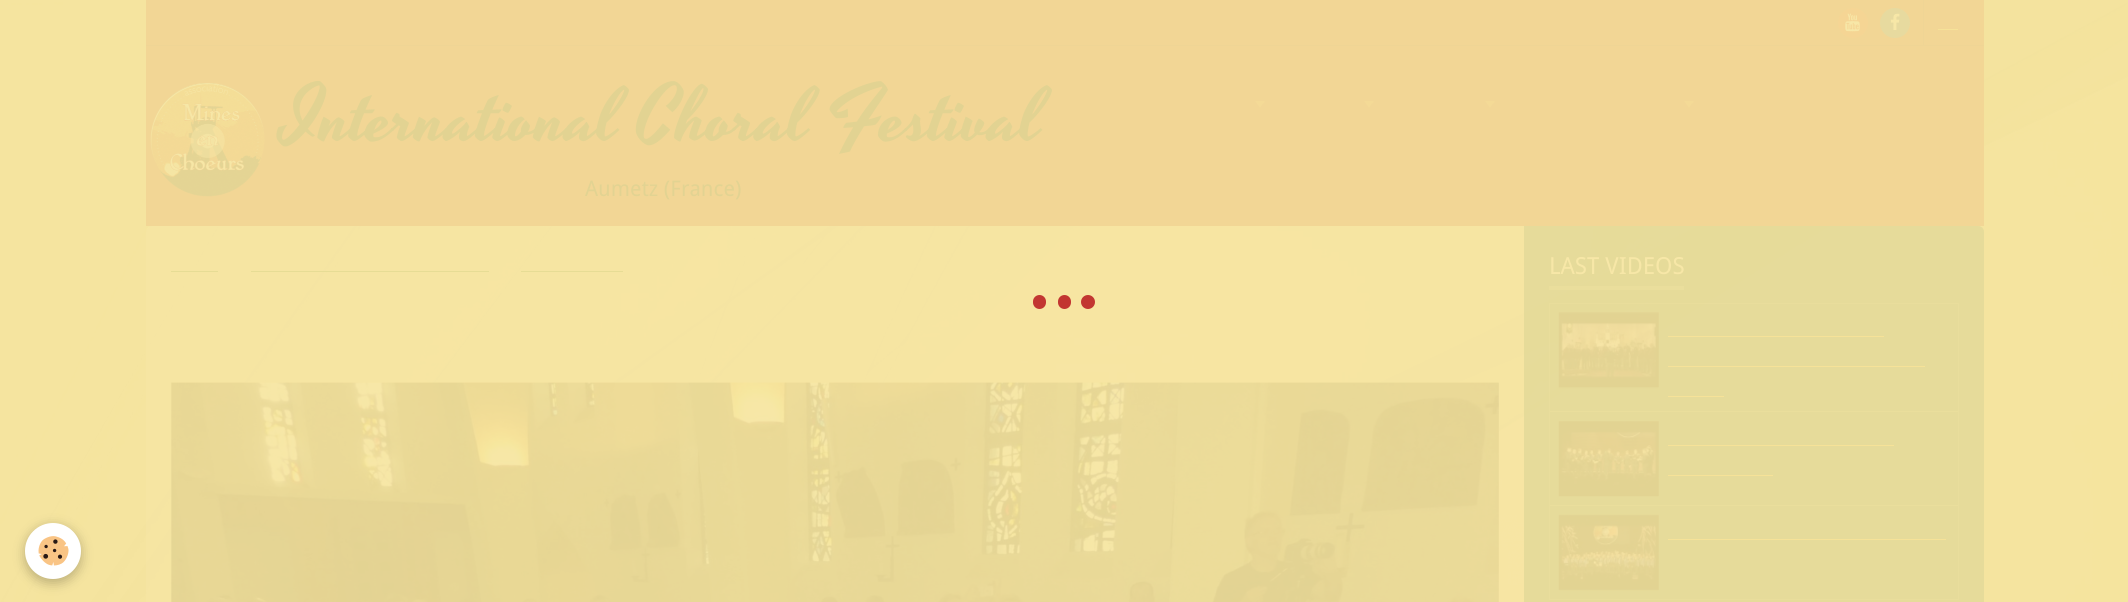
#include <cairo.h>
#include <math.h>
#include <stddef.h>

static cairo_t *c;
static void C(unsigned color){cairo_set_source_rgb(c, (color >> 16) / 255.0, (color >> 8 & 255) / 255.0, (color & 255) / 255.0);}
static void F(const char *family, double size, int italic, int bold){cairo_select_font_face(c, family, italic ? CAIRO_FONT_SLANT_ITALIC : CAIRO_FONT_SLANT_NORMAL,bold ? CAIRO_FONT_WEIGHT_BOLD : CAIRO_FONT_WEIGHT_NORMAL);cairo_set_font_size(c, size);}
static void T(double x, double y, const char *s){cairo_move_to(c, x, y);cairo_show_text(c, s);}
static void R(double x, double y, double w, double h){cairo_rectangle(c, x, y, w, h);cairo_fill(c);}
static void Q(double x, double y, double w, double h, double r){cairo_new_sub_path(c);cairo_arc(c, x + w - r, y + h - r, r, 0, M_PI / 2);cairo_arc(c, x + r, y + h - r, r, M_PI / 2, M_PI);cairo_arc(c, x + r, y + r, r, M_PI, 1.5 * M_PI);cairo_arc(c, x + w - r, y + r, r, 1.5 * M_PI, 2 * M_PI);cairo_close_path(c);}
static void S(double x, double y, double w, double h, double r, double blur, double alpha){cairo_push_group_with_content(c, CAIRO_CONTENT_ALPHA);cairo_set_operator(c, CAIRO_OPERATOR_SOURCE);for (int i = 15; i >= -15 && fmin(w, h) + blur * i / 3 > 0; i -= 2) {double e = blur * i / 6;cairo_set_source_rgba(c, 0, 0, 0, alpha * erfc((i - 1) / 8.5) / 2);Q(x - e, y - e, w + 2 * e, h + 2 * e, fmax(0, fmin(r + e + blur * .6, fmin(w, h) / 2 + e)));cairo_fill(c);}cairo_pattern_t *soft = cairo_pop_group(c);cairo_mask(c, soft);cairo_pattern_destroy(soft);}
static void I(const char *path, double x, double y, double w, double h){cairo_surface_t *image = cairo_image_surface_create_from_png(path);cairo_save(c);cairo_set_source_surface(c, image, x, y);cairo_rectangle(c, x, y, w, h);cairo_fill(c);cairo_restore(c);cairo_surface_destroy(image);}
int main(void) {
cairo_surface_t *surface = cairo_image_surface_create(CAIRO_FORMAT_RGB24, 2128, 602);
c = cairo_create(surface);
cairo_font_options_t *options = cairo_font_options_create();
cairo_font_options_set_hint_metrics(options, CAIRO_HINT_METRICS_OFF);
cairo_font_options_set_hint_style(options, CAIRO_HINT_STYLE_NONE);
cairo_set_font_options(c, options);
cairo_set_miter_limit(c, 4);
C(0xf6e59f);
cairo_paint(c);
I("1.png",0,0,2128,602);
C(0xf2d695);
R(146,0,1838,226);
C(0xefd595);
R(146,45,1838,1);
C(0xf5d594);
cairo_arc(c,1853,23,15,0,2 * M_PI);
cairo_fill(c);
I("2.png",1845,13,15,19);
C(0xe7da9f);
cairo_arc(c,1895,23,15,0,2 * M_PI);
cairo_fill(c);
I("3.png",1890,13,10,17);
C(0xefd595);
R(1923,0,1,45);
C(0xf6e298);
R(1938,29,20,1);
I("4.png",150,83,115,114);
F("Yesteryear",76,0,0);
C(0xe2d392);
T(284,139,"International Choral Festival");
F("Droid Sans",21.5,0,0);
T(585,196,"Aumetz (France)");
C(0xf4da96);
cairo_new_path(c);
cairo_move_to(c,1255,101);
cairo_line_to(c,1265,101);
cairo_line_to(c,1260,107.5);
cairo_close_path(c);
cairo_fill(c);
cairo_new_path(c);
cairo_move_to(c,1364,101);
cairo_line_to(c,1374,101);
cairo_line_to(c,1369,107.5);
cairo_close_path(c);
cairo_fill(c);
cairo_new_path(c);
cairo_move_to(c,1485,101);
cairo_line_to(c,1495,101);
cairo_line_to(c,1490,107.5);
cairo_close_path(c);
cairo_fill(c);
cairo_new_path(c);
cairo_move_to(c,1684,101);
cairo_line_to(c,1694,101);
cairo_line_to(c,1689,107.5);
cairo_close_path(c);
cairo_fill(c);
cairo_set_source_rgba(c,0.969,0.906,0.655,0.4);
cairo_new_path(c);
cairo_move_to(c,152,226);
cairo_line_to(c,1524,226);
cairo_line_to(c,1524,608);
cairo_line_to(c,152,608);
cairo_curve_to(c,148.5,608,146,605.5,146,602);
cairo_line_to(c,146,232);
cairo_curve_to(c,146,228.5,148.5,226,152,226);
cairo_close_path(c);
cairo_fill(c);
C(0xe7dc95);
R(171,271,47,1);
R(251,271,238,1);
R(521,271,102,1);
I("5.png",170,382,1329,220);
cairo_set_source_rgba(c,0.898,0.859,0.6,0.9);
cairo_new_path(c);
cairo_move_to(c,1524,226);
cairo_line_to(c,1978,226);
cairo_curve_to(c,1981.5,226,1984,228.5,1984,232);
cairo_line_to(c,1984,602);
cairo_curve_to(c,1984,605.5,1981.5,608,1978,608);
cairo_line_to(c,1524,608);
cairo_close_path(c);
cairo_fill(c);
C(0xeade9c);
R(1549,286,135,4);
F("Droid Sans",23.5,0,0);
C(0xf7e7a7);
T(1549,274,"LAST VIDEOS");
cairo_rectangle(c,1549.5,303.5,409,296);
cairo_set_source_rgba(c,0.969,0.906,0.655,0.2);
cairo_set_line_width(c,1);
cairo_stroke(c);
C(0xeade9c);
R(1550,411,408,1);
I("6.png",1558,312,101,77);
C(0xf6e298);
R(1668,336,216,1);
R(1668,366,257,1);
R(1668,396,56,1);
C(0xeade9c);
R(1550,505,408,1);
I("7.png",1558,421,101,76);
C(0xf6e298);
R(1668,445,226,1);
R(1668,475,105,1);
I("8.png",1558,514,101,77);
R(1668,539,278,1);
C(0xc23631);
Q(1033,295,13,14,6.5);
cairo_fill(c);
Q(1058,295,13,14,6.5);
cairo_fill(c);
cairo_arc(c,1088,302,7,0,2 * M_PI);
cairo_fill(c);
C(0x000000);
S(25,526,56,57,28,6,.24);
C(0xffffff);
cairo_arc(c,53,551,28,0,2 * M_PI);
cairo_fill(c);
I("9.png",38,536,31,30);
cairo_surface_write_to_png(surface, "o.png");
cairo_font_options_destroy(options);
cairo_destroy(c);
cairo_surface_destroy(surface);
return 0;
}
